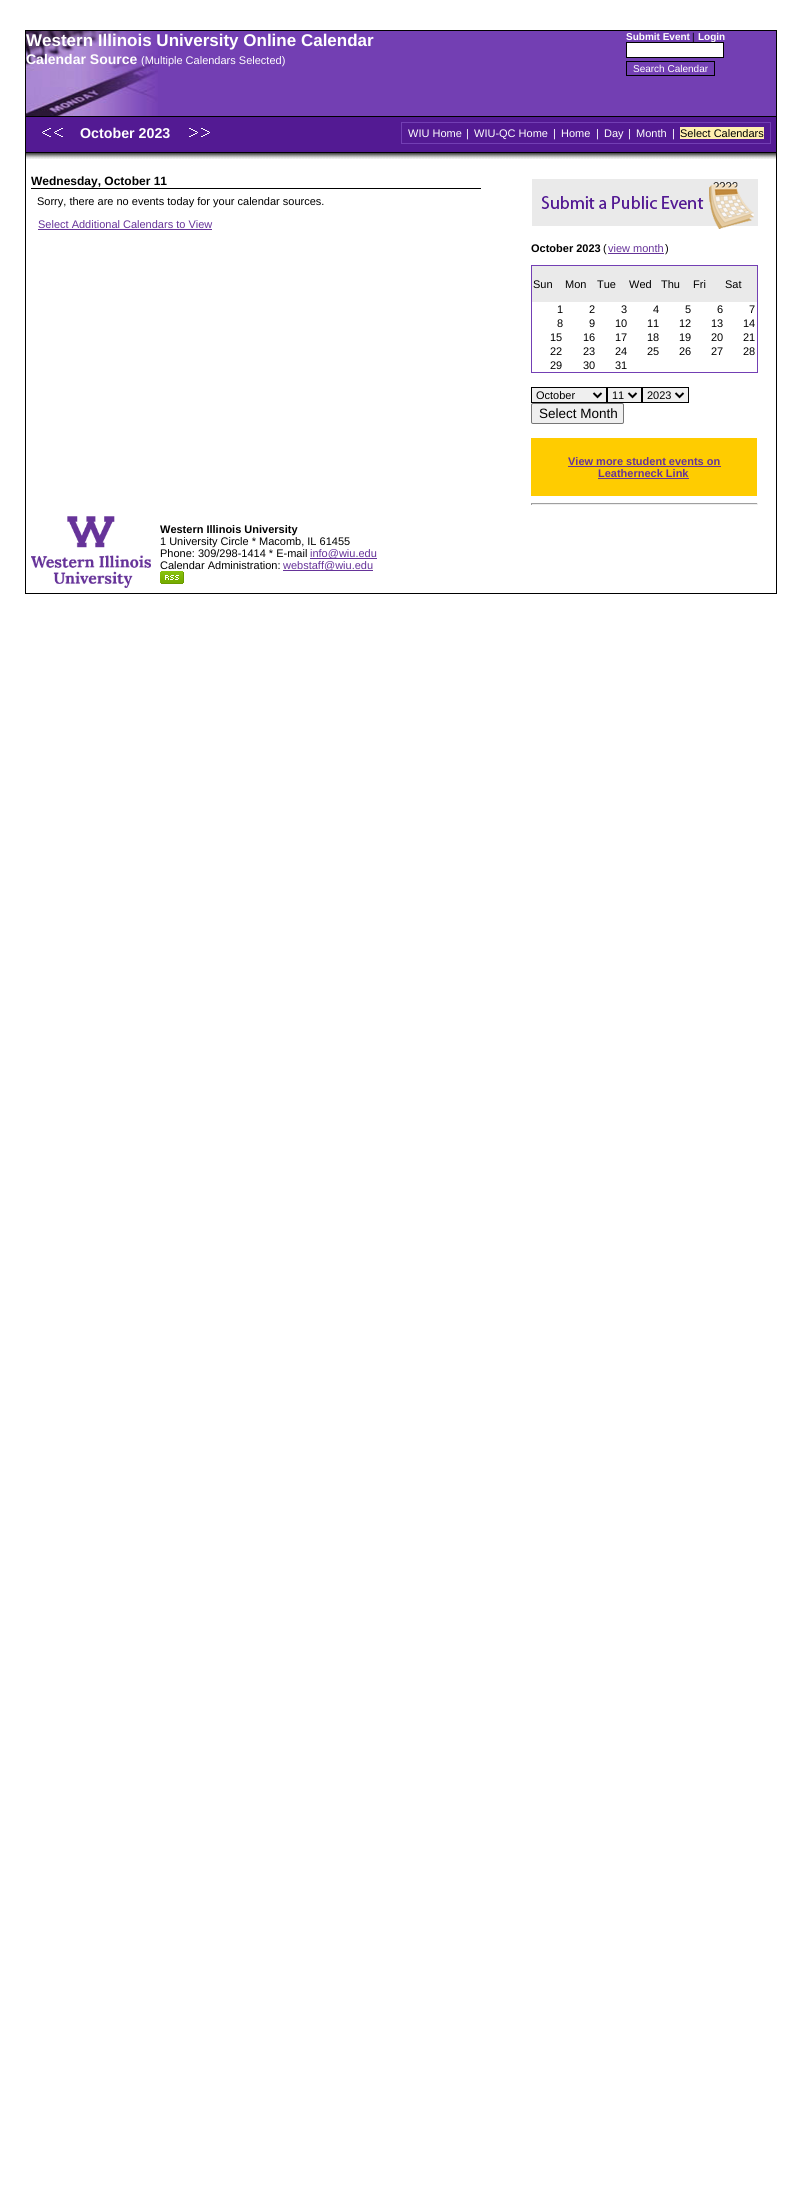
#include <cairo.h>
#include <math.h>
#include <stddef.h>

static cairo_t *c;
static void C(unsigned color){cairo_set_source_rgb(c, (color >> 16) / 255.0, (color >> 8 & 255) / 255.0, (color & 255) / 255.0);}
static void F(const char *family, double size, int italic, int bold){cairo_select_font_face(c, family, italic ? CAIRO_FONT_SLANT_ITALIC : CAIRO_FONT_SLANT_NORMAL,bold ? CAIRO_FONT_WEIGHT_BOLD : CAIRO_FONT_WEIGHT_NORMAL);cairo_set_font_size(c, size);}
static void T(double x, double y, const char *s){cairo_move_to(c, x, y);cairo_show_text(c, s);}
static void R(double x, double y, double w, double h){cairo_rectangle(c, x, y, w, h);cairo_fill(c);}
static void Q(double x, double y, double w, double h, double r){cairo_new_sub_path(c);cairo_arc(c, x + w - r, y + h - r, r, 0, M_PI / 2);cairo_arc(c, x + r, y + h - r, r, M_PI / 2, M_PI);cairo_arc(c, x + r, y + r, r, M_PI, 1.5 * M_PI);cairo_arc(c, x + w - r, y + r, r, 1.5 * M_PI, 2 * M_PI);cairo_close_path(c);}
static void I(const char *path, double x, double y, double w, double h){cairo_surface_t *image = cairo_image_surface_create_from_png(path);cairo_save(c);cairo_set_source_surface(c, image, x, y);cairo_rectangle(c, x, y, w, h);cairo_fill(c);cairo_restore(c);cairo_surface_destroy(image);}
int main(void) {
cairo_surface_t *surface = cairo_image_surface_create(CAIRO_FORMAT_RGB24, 801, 2189);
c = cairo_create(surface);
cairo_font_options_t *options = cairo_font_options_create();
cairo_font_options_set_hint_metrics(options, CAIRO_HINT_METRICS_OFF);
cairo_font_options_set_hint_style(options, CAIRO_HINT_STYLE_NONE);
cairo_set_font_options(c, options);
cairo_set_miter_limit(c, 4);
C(0xffffff);
cairo_paint(c);
cairo_rectangle(c,25.5,30.5,751,563);
C(0x000000);
cairo_set_line_width(c,1);
cairo_stroke(c);
C(0x733fb3);
R(158,31,618,85);
I("1.png",26,31,132,85);
C(0x000000);
R(26,116,750,1);
F("Liberation Sans",17,0,1);
C(0xffffff);
T(26,46,"Western Illinois University Online Calendar");
F("Liberation Sans",14,0,1);
T(26,64,"Calendar Source");
F("Liberation Sans",11,0,0);
T(141,64,"(Multiple Calendars Selected)");
F("Liberation Sans",10,0,1);
T(626,40,"Submit Event");
F("Liberation Sans",10,0,0);
C(0x000000);
T(692,40,"|");
F("Liberation Sans",10,0,1);
C(0xffffff);
T(698,40,"Login");
cairo_rectangle(c,626.5,42.5,97,15);
cairo_fill_preserve(c);
C(0x000000);
cairo_stroke(c);
cairo_rectangle(c,626.5,61.5,88,14);
cairo_stroke(c);
F("Liberation Sans",10,0,0);
C(0xffffff);
T(633,72,"Search Calendar");
C(0x531a93);
R(26,117,750,35);
C(0x000000);
R(26,152,750,1);
I("2.png",42,128,21,9);
F("Liberation Sans",14.25,0,1);
C(0xffffff);
T(80,138,"October 2023");
I("3.png",189,128,21,9);
cairo_rectangle(c,401.5,122.5,369,21);
C(0x733fb4);
cairo_stroke(c);
F("Liberation Sans",11,0,0);
C(0xffffff);
T(408,137,"WIU Home");
T(466,137,"|");
T(474,137,"WIU-QC Home");
T(553,137,"|");
T(561,137,"Home");
T(596,137,"|");
T(604,137,"Day");
T(628,137,"|");
T(636,137,"Month");
T(672,137,"|");
C(0xffefaf);
R(680,127,84,12);
C(0x000000);
T(680,137,"Select Calendars");
I("4.png",26,153,750,6);
R(31,188,450,1);
F("Liberation Sans",12,0,1);
T(31,185,"Wednesday, October 11");
F("Liberation Sans",11,0,0);
T(37,205,"Sorry, there are no events today for your calendar sources.");
C(0x663399);
T(38,228,"Select Additional Calendars to View");
R(38,229,174,1);
I("5.png",532,179,226,50);
F("Liberation Sans",11,0,1);
C(0x000000);
T(531,252,"October 2023");
F("Liberation Sans",11,0,0);
T(603,252,"(");
C(0x663399);
T(608,252,"view month");
R(608,253,56,1);
C(0x000000);
T(665,252,")");
cairo_rectangle(c,531.5,265.5,226,107);
C(0x733fb4);
cairo_stroke(c);
C(0xeaeaea);
R(532,266,225,36);
C(0x000000);
T(533,288,"Sun");
T(565,288,"Mon");
T(597,288,"Tue");
T(629,288,"Wed");
T(661,288,"Thu");
T(693,288,"Fri");
T(725,288,"Sat");
T(557,313,"1");
T(589,313,"2");
T(621,313,"3");
T(653,313,"4");
T(685,313,"5");
T(717,313,"6");
T(749,313,"7");
T(557,327,"8");
T(589,327,"9");
T(615,327,"10");
T(647,327,"11");
T(679,327,"12");
T(711,327,"13");
T(743,327,"14");
T(550,341,"15");
T(583,341,"16");
T(615,341,"17");
T(647,341,"18");
T(679,341,"19");
T(711,341,"20");
T(743,341,"21");
T(550,355,"22");
T(583,355,"23");
T(615,355,"24");
T(647,355,"25");
T(679,355,"26");
T(711,355,"27");
T(743,355,"28");
T(550,369,"29");
T(583,369,"30");
T(615,369,"31");
C(0xefefef);
cairo_rectangle(c,531.5,387.5,75,15);
cairo_fill_preserve(c);
C(0x000000);
cairo_stroke(c);
cairo_new_path(c);
cairo_move_to(c,593.5,393);
cairo_line_to(c,597.5,397);
cairo_line_to(c,601.5,393);
cairo_set_line_width(c,2);
cairo_stroke(c);
T(536,399,"October");
C(0xefefef);
cairo_rectangle(c,607.5,387.5,34,15);
cairo_fill_preserve(c);
C(0x000000);
cairo_set_line_width(c,1);
cairo_stroke(c);
cairo_new_path(c);
cairo_move_to(c,628.5,393);
cairo_line_to(c,632.5,397);
cairo_line_to(c,636.5,393);
cairo_set_line_width(c,2);
cairo_stroke(c);
T(612,399,"11");
C(0xefefef);
cairo_rectangle(c,642.5,387.5,46,15);
cairo_fill_preserve(c);
C(0x000000);
cairo_set_line_width(c,1);
cairo_stroke(c);
cairo_new_path(c);
cairo_move_to(c,675.5,393);
cairo_line_to(c,679.5,397);
cairo_line_to(c,683.5,393);
cairo_set_line_width(c,2);
cairo_stroke(c);
T(647,399,"2023");
C(0xefefef);
Q(531.5,403.5,92,20,1.5);
cairo_fill_preserve(c);
C(0x767676);
cairo_set_line_width(c,1);
cairo_stroke(c);
F("Liberation Sans",13.5,0,0);
C(0x000000);
T(539,418,"Select Month");
C(0xffcc00);
R(531,438,226,58);
F("Liberation Sans",11,0,1);
C(0x663399);
T(568,465,"View more student events on");
R(568,466,153,1);
T(598,477,"Leatherneck Link");
R(598,478,91,1);
C(0x9f9f9f);
R(531,503,227,1);
C(0xeeeeee);
R(757,503,1,2);
R(531,504,227,1);
C(0x9f9f9f);
R(531,503,1,2);
I("6.png",31,516,120,72);
C(0x000000);
T(160,533,"Western Illinois University");
F("Liberation Sans",11,0,0);
T(160,545,"1 University Circle * Macomb, IL 61455");
T(160,557,"Phone: 309/298-1414 * E-mail");
C(0x663399);
R(310,558,67,1);
T(310,557,"info@wiu.edu");
C(0x000000);
T(160,569,"Calendar Administration:");
C(0x663399);
R(283,570,90,1);
T(283,569,"webstaff@wiu.edu");
I("7.png",160,571,24,13);
cairo_surface_write_to_png(surface, "o.png");
cairo_font_options_destroy(options);
cairo_destroy(c);
cairo_surface_destroy(surface);
return 0;
}
